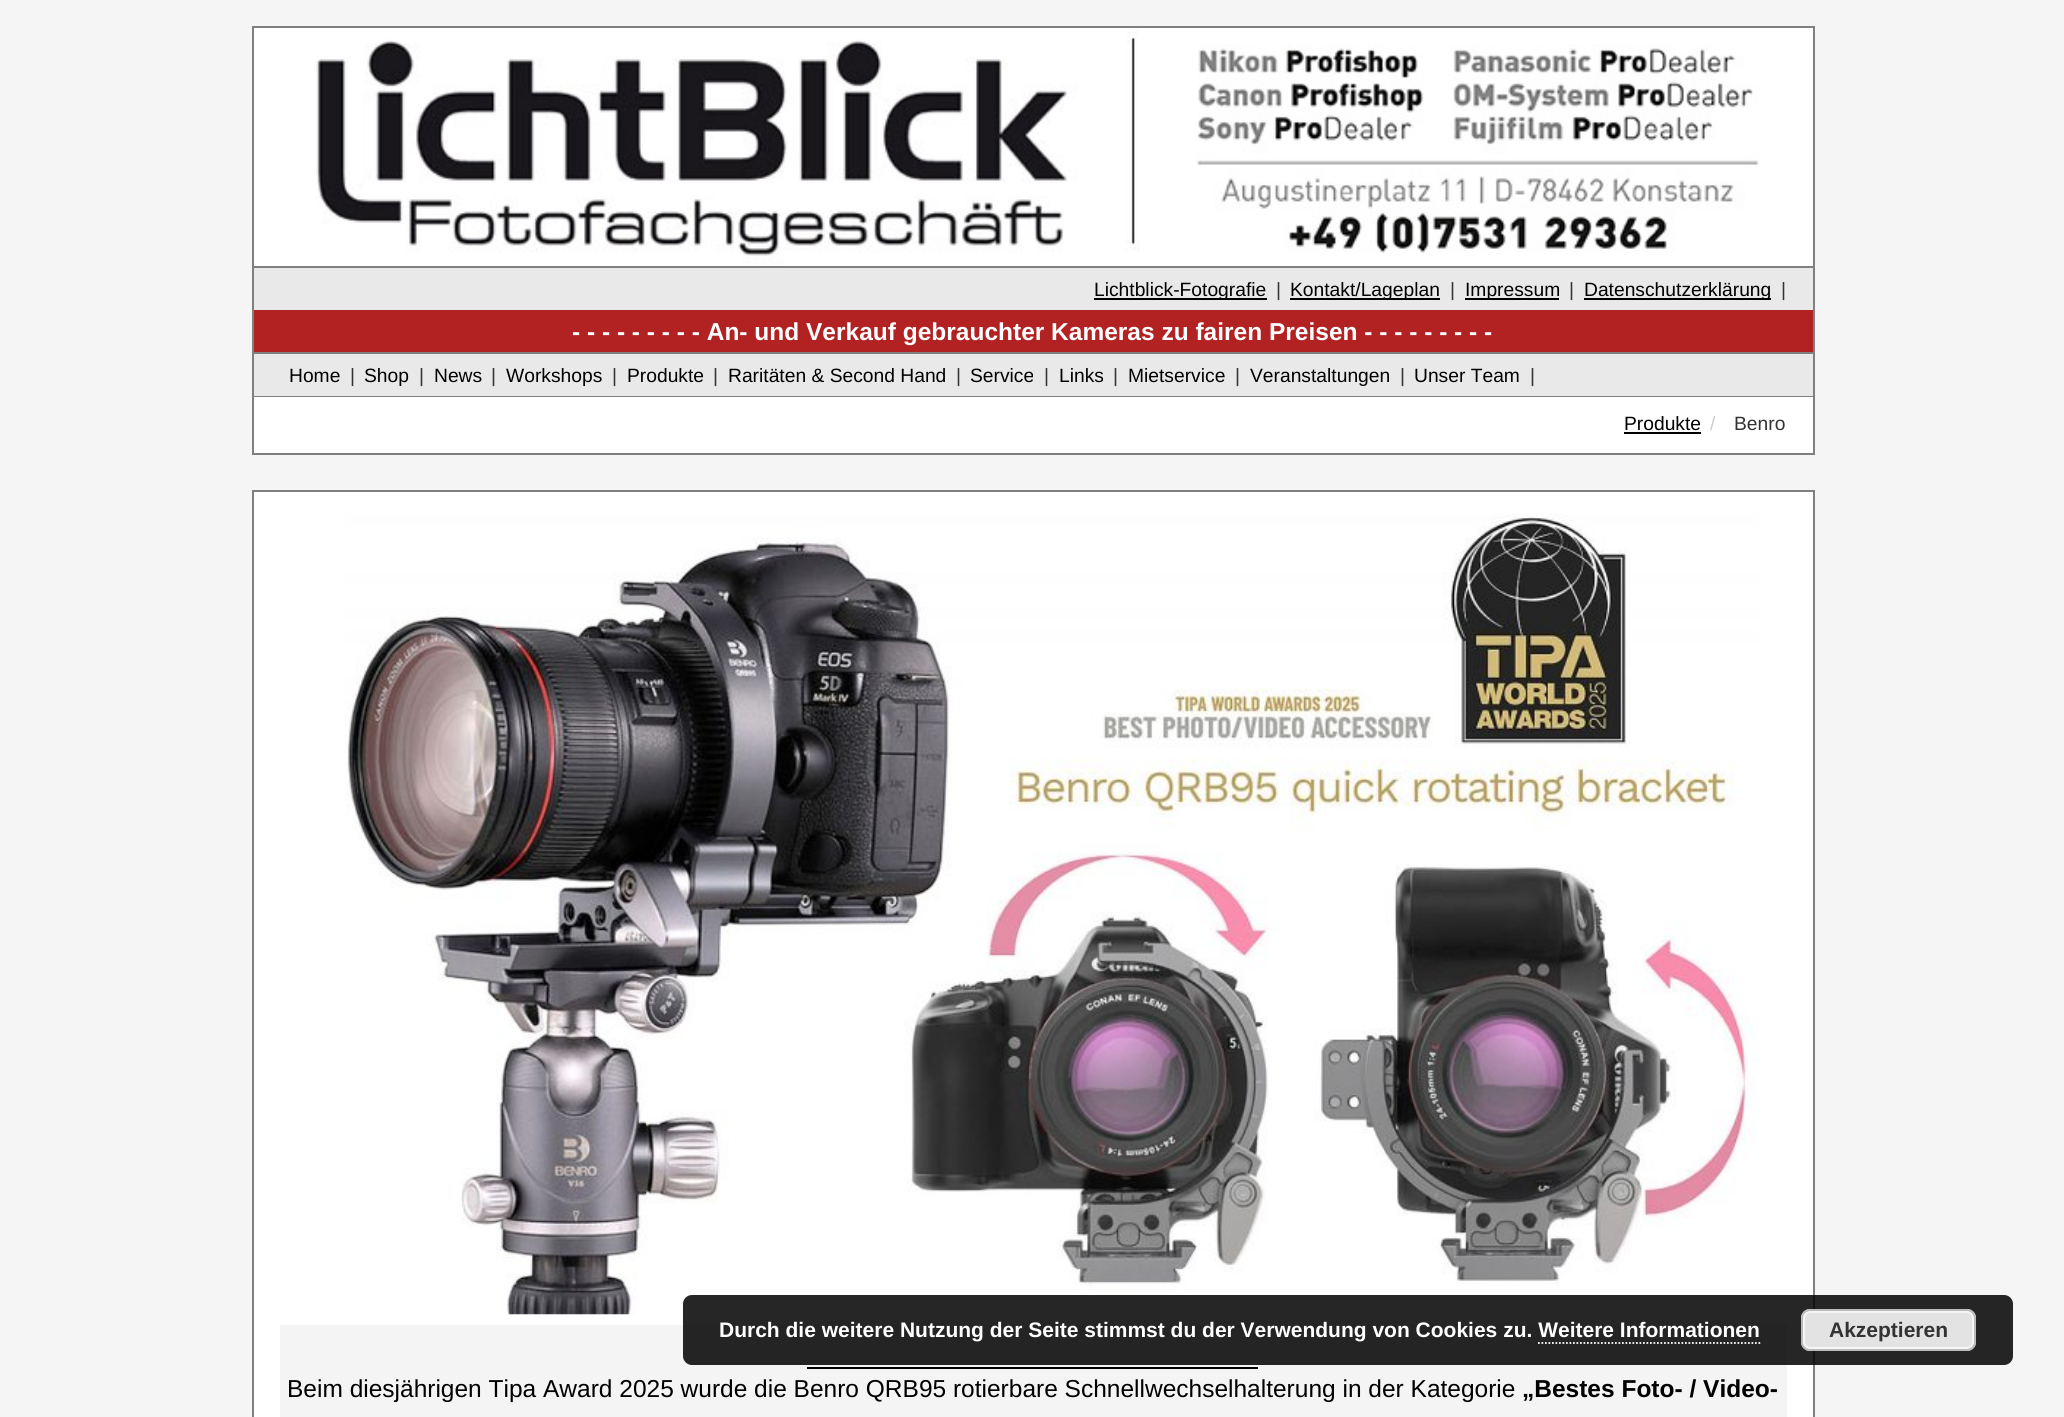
#include <cairo.h>
#include <math.h>
#include <stddef.h>

static cairo_t *c;
static void C(unsigned color){cairo_set_source_rgb(c, (color >> 16) / 255.0, (color >> 8 & 255) / 255.0, (color & 255) / 255.0);}
static void F(const char *family, double size, int italic, int bold){cairo_select_font_face(c, family, italic ? CAIRO_FONT_SLANT_ITALIC : CAIRO_FONT_SLANT_NORMAL,bold ? CAIRO_FONT_WEIGHT_BOLD : CAIRO_FONT_WEIGHT_NORMAL);cairo_set_font_size(c, size);}
static void T(double x, double y, const char *s){cairo_move_to(c, x, y);cairo_show_text(c, s);}
static void R(double x, double y, double w, double h){cairo_rectangle(c, x, y, w, h);cairo_fill(c);}
static void Q(double x, double y, double w, double h, double r){cairo_new_sub_path(c);cairo_arc(c, x + w - r, y + h - r, r, 0, M_PI / 2);cairo_arc(c, x + r, y + h - r, r, M_PI / 2, M_PI);cairo_arc(c, x + r, y + r, r, M_PI, 1.5 * M_PI);cairo_arc(c, x + w - r, y + r, r, 1.5 * M_PI, 2 * M_PI);cairo_close_path(c);}
static void I(const char *path, double x, double y, double w, double h){cairo_surface_t *image = cairo_image_surface_create_from_png(path);cairo_save(c);cairo_set_source_surface(c, image, x, y);cairo_rectangle(c, x, y, w, h);cairo_fill(c);cairo_restore(c);cairo_surface_destroy(image);}
int main(void) {
cairo_surface_t *surface = cairo_image_surface_create(CAIRO_FORMAT_RGB24, 2064, 1417);
c = cairo_create(surface);
cairo_font_options_t *options = cairo_font_options_create();
cairo_font_options_set_hint_metrics(options, CAIRO_HINT_METRICS_OFF);
cairo_font_options_set_hint_style(options, CAIRO_HINT_STYLE_NONE);
cairo_set_font_options(c, options);
cairo_set_miter_limit(c, 4);
C(0xf5f5f5);
cairo_paint(c);
C(0xffffff);
R(254,28,1559,238);
cairo_rectangle(c,253,27,1561,326);
C(0x808080);
cairo_stroke(c);
I("1.png",316,39,762,227);
I("2.png",1125,28,15,224);
I("3.png",1196,44,563,209);
C(0xe9e9e9);
R(254,268,1559,42);
C(0x808080);
R(254,266,1559,2);
C(0x000000);
R(1094,298,173,2);
F("Liberation Sans",19.25,0,0);
T(1094,296,"Lichtblick-Fotografie");
C(0x333333);
T(1276,296,"|");
C(0x000000);
R(1290,298,150,2);
T(1290,296,"Kontakt/Lageplan");
C(0x333333);
T(1450,296,"|");
C(0x000000);
R(1465,298,94,2);
T(1465,296,"Impressum");
C(0x333333);
T(1569,296,"|");
C(0x000000);
R(1584,298,187,2);
T(1584,296,"Datenschutzerklärung");
C(0x333333);
T(1781,296,"|");
C(0xb22222);
R(254,310,1559,42);
F("Liberation Sans",24.5,0,1);
C(0xffffff);
T(572,340,"- - - - - - - - - An- und Verkauf gebrauchter Kameras zu fairen Preisen - - - - - - - - -");
C(0xe9e9e9);
R(254,354,1559,42);
C(0x808080);
R(1813,354,2,42);
R(252,354,2,42);
F("Liberation Sans",19.25,0,0);
C(0x000000);
T(289,382,"Home");
C(0x333333);
T(350,382,"|");
C(0x000000);
T(364,382,"Shop");
C(0x333333);
T(419,382,"|");
C(0x000000);
T(434,382,"News");
C(0x333333);
T(491,382,"|");
C(0x000000);
T(506,382,"Workshops");
C(0x333333);
T(612,382,"|");
C(0x000000);
T(627,382,"Produkte");
C(0x333333);
T(713,382,"|");
C(0x000000);
T(728,382,"Raritäten & Second Hand");
C(0x333333);
T(956,382,"|");
C(0x000000);
T(970,382,"Service");
C(0x333333);
T(1044,382,"|");
C(0x000000);
T(1059,382,"Links");
C(0x333333);
T(1113,382,"|");
C(0x000000);
T(1128,382,"Mietservice");
C(0x333333);
T(1235,382,"|");
C(0x000000);
T(1250,382,"Veranstaltungen");
C(0x333333);
T(1400,382,"|");
C(0x000000);
T(1414,382,"Unser Team");
C(0x333333);
T(1530,382,"|");
cairo_rectangle(c,253,397,1561,57);
C(0x808080);
cairo_stroke(c);
C(0xffffff);
R(254,397,1559,56);
C(0x000000);
T(1624,430,"Produkte");
R(1624,432,77,2);
C(0xcccccc);
T(1710,430,"/");
C(0x333333);
T(1734,430,"Benro");
C(0xffffff);
R(254,492,1559,925);
C(0x808080);
R(252,490,1563,2);
R(1813,490,2,927);
I("4.png",345,514,1414,801);
C(0xf4f4f4);
R(280,1325,1507,92);
cairo_set_source_rgba(c,0,0,0,0.85);
Q(683,1295,1330,70,9);
cairo_fill(c);
F("Liberation Sans",21,0,1);
C(0xffffff);
T(719,1337,"Durch die weitere Nutzung der Seite stimmst du der Verwendung von Cookies zu. Weitere Informationen");
C(0xe3e3e3);
Q(1801,1309,175,42,9);
cairo_fill(c);
Q(1804,1312,169,36,6);
C(0xf6f6f6);
cairo_stroke(c);
Q(1802,1310,173,40,8);
C(0xbbbbbb);
cairo_stroke(c);
C(0x333333);
T(1829,1337,"Akzeptieren");
cairo_new_path(c);
cairo_move_to(c,1538,1343);
cairo_line_to(c,1760.5,1343);
C(0xffffff);
cairo_set_line_width(c,1.8);
cairo_set_dash(c,(double[]){1.75,1.75},2,0);
cairo_stroke(c);
C(0x808080);
R(252,490,2,927);
C(0x000000);
R(807,1367,451,2);
F("Liberation Sans",24.5,0,0);
T(287,1397,"Beim diesjährigen Tipa Award 2025 wurde die Benro QRB95 rotierbare Schnellwechselhalterung in der Kategorie");
F("Liberation Sans",24.5,0,1);
T(1522,1397,"„Bestes Foto- / Video-");
cairo_surface_write_to_png(surface, "o.png");
cairo_font_options_destroy(options);
cairo_destroy(c);
cairo_surface_destroy(surface);
return 0;
}
